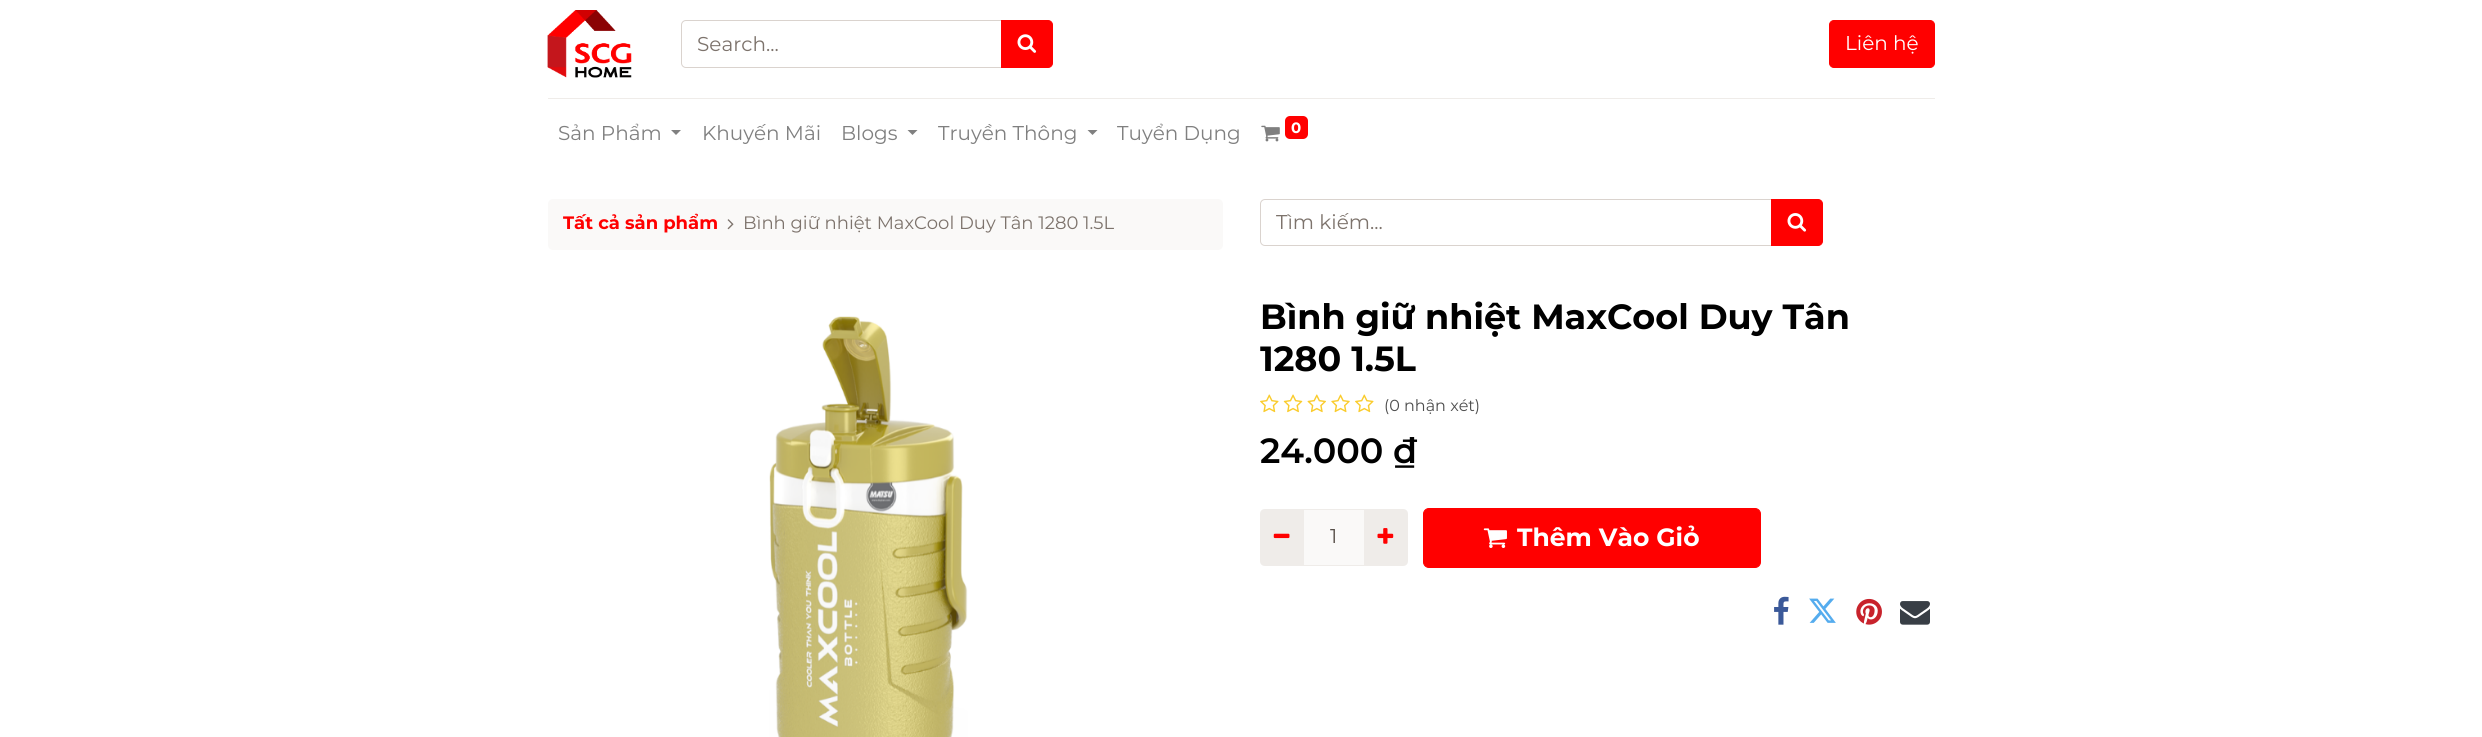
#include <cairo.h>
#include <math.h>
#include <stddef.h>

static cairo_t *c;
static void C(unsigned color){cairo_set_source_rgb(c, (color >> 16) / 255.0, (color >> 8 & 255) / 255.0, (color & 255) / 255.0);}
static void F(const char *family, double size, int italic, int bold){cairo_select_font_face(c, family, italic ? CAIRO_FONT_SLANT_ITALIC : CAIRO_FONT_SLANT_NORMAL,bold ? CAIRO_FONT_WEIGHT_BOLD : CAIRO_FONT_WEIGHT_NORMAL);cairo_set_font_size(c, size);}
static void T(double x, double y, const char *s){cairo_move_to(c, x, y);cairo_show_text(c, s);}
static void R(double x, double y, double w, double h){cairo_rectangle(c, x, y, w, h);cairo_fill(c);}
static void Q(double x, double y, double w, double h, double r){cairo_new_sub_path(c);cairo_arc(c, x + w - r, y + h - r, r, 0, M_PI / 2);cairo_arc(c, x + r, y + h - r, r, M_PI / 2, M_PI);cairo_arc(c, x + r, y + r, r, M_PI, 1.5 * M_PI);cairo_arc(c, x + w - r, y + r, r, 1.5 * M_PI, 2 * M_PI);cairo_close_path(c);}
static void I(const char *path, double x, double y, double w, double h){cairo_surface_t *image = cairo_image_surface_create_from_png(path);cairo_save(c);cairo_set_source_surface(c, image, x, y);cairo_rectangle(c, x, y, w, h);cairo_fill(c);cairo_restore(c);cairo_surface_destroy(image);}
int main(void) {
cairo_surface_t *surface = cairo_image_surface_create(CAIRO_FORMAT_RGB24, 2482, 737);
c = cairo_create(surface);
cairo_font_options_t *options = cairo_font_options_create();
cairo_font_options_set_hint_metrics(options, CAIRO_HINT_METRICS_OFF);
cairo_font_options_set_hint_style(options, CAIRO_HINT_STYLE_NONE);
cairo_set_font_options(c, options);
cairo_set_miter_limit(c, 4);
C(0xffffff);
cairo_paint(c);
I("1.png",547,10,85,68);
cairo_new_path(c);
cairo_move_to(c,686,20.5);
cairo_line_to(c,1002.5,20.5);
cairo_line_to(c,1002.5,67.5);
cairo_line_to(c,686,67.5);
cairo_curve_to(c,683.5,67.5,681.5,65.5,681.5,63);
cairo_line_to(c,681.5,25);
cairo_curve_to(c,681.5,22.5,683.5,20.5,686,20.5);
cairo_close_path(c);
C(0xdad3ce);
cairo_set_line_width(c,1);
cairo_stroke(c);
F("Montserrat",20,0,0);
C(0x7d736c);
T(697,51,"Search...");
C(0xff0000);
cairo_new_path(c);
cairo_move_to(c,1001.5,20.5);
cairo_line_to(c,1048,20.5);
cairo_curve_to(c,1050.5,20.5,1052.5,22.5,1052.5,25);
cairo_line_to(c,1052.5,63);
cairo_curve_to(c,1052.5,65.5,1050.5,67.5,1048,67.5);
cairo_line_to(c,1001.5,67.5);
cairo_close_path(c);
cairo_fill_preserve(c);
cairo_stroke(c);
I("2.png",1017,34,20,19);
Q(1829.5,20.5,105,47,4.5);
cairo_fill_preserve(c);
cairo_stroke(c);
C(0xffffff);
T(1845,50,"Liên hệ");
C(0xefece9);
R(548,98,1387,1);
C(0x808080);
T(558,140,"Sản Phẩm");
cairo_new_path(c);
cairo_move_to(c,671,130);
cairo_line_to(c,681,130);
cairo_line_to(c,676,135);
cairo_close_path(c);
cairo_fill(c);
T(702,140,"Khuyến Mãi");
T(841,140,"Blogs");
cairo_new_path(c);
cairo_move_to(c,907.5,130);
cairo_line_to(c,917.5,130);
cairo_line_to(c,912.5,135);
cairo_close_path(c);
cairo_fill(c);
T(938,140,"Truyền Thông");
cairo_new_path(c);
cairo_move_to(c,1087.5,130);
cairo_line_to(c,1097.5,130);
cairo_line_to(c,1092.5,135);
cairo_close_path(c);
cairo_fill(c);
T(1117,140,"Tuyển Dụng");
I("3.png",1261,125,19,17);
C(0xff0000);
Q(1285,116,23,23,5);
cairo_fill(c);
F("Montserrat",15,0,1);
C(0xffffff);
T(1291,133,"0");
C(0xfaf9f8);
Q(548,199,675,51,5);
cairo_fill(c);
F("Montserrat",18,0,1);
C(0xff0000);
T(563,229,"Tất cả sản phẩm");
I("4.png",727,219,7,11);
F("Montserrat",18,0,0);
C(0x7d736c);
T(743,229,"Bình giữ nhiệt MaxCool Duy Tân 1280 1.5L");
cairo_new_path(c);
cairo_move_to(c,1265,199.5);
cairo_line_to(c,1772.5,199.5);
cairo_line_to(c,1772.5,245.5);
cairo_line_to(c,1265,245.5);
cairo_curve_to(c,1262.5,245.5,1260.5,243.5,1260.5,241);
cairo_line_to(c,1260.5,204);
cairo_curve_to(c,1260.5,201.5,1262.5,199.5,1265,199.5);
cairo_close_path(c);
C(0xdad3ce);
cairo_stroke(c);
F("Montserrat",20,0,0);
C(0x7d736c);
T(1276,229,"Tìm kiếm...");
C(0xff0000);
cairo_new_path(c);
cairo_move_to(c,1771.5,199.5);
cairo_line_to(c,1818,199.5);
cairo_curve_to(c,1820.5,199.5,1822.5,201.5,1822.5,204);
cairo_line_to(c,1822.5,241);
cairo_curve_to(c,1822.5,243.5,1820.5,245.5,1818,245.5);
cairo_line_to(c,1771.5,245.5);
cairo_close_path(c);
cairo_fill_preserve(c);
cairo_stroke(c);
I("5.png",1787,213,20,19);
I("6.png",769,316,199,421);
F("Montserrat",35,0,1);
C(0x000000);
T(1260,329,"Bình giữ nhiệt MaxCool Duy Tân");
T(1260,371,"1280 1.5L");
I("7.png",1260,394,19,19);
I("8.png",1283,394,20,19);
I("9.png",1307,394,19,19);
I("10.png",1331,394,19,19);
I("7.png",1355,394,19,19);
F("Montserrat",16,0,0);
C(0x4d4d4d);
T(1384,411,"(0 nhận xét)");
F("Montserrat SemiBold",35,0,0);
C(0x000000);
T(1260,463,"24.000 ₫");
C(0xfaf9f8);
cairo_rectangle(c,1303.5,509.5,61,56);
cairo_fill_preserve(c);
C(0xefece9);
cairo_stroke(c);
cairo_new_path(c);
cairo_move_to(c,1265,509);
cairo_line_to(c,1304,509);
cairo_line_to(c,1304,566);
cairo_line_to(c,1265,566);
cairo_curve_to(c,1262,566,1260,564,1260,561);
cairo_line_to(c,1260,514);
cairo_curve_to(c,1260,511,1262,509,1265,509);
cairo_close_path(c);
cairo_fill(c);
I("11.png",1273,533,17,6);
F("Montserrat",20,0,0);
C(0x574f49);
T(1330,543,"1");
C(0xefece9);
cairo_new_path(c);
cairo_move_to(c,1364,509);
cairo_line_to(c,1403,509);
cairo_curve_to(c,1406,509,1408,511,1408,514);
cairo_line_to(c,1408,561);
cairo_curve_to(c,1408,564,1406,566,1403,566);
cairo_line_to(c,1364,566);
cairo_close_path(c);
cairo_fill(c);
I("12.png",1377,528,17,16);
C(0xff0000);
Q(1423.5,508.5,337,59,5.5);
cairo_fill_preserve(c);
cairo_stroke(c);
I("13.png",1483,528,24,20);
F("Montserrat",25,0,1);
C(0xffffff);
T(1517,546,"Thêm Vào Giỏ");
I("14.png",1774,596,15,29);
I("15.png",1809,598,27,25);
I("16.png",1856,598,26,27);
I("17.png",1900,601,30,24);
cairo_surface_write_to_png(surface, "o.png");
cairo_font_options_destroy(options);
cairo_destroy(c);
cairo_surface_destroy(surface);
return 0;
}
